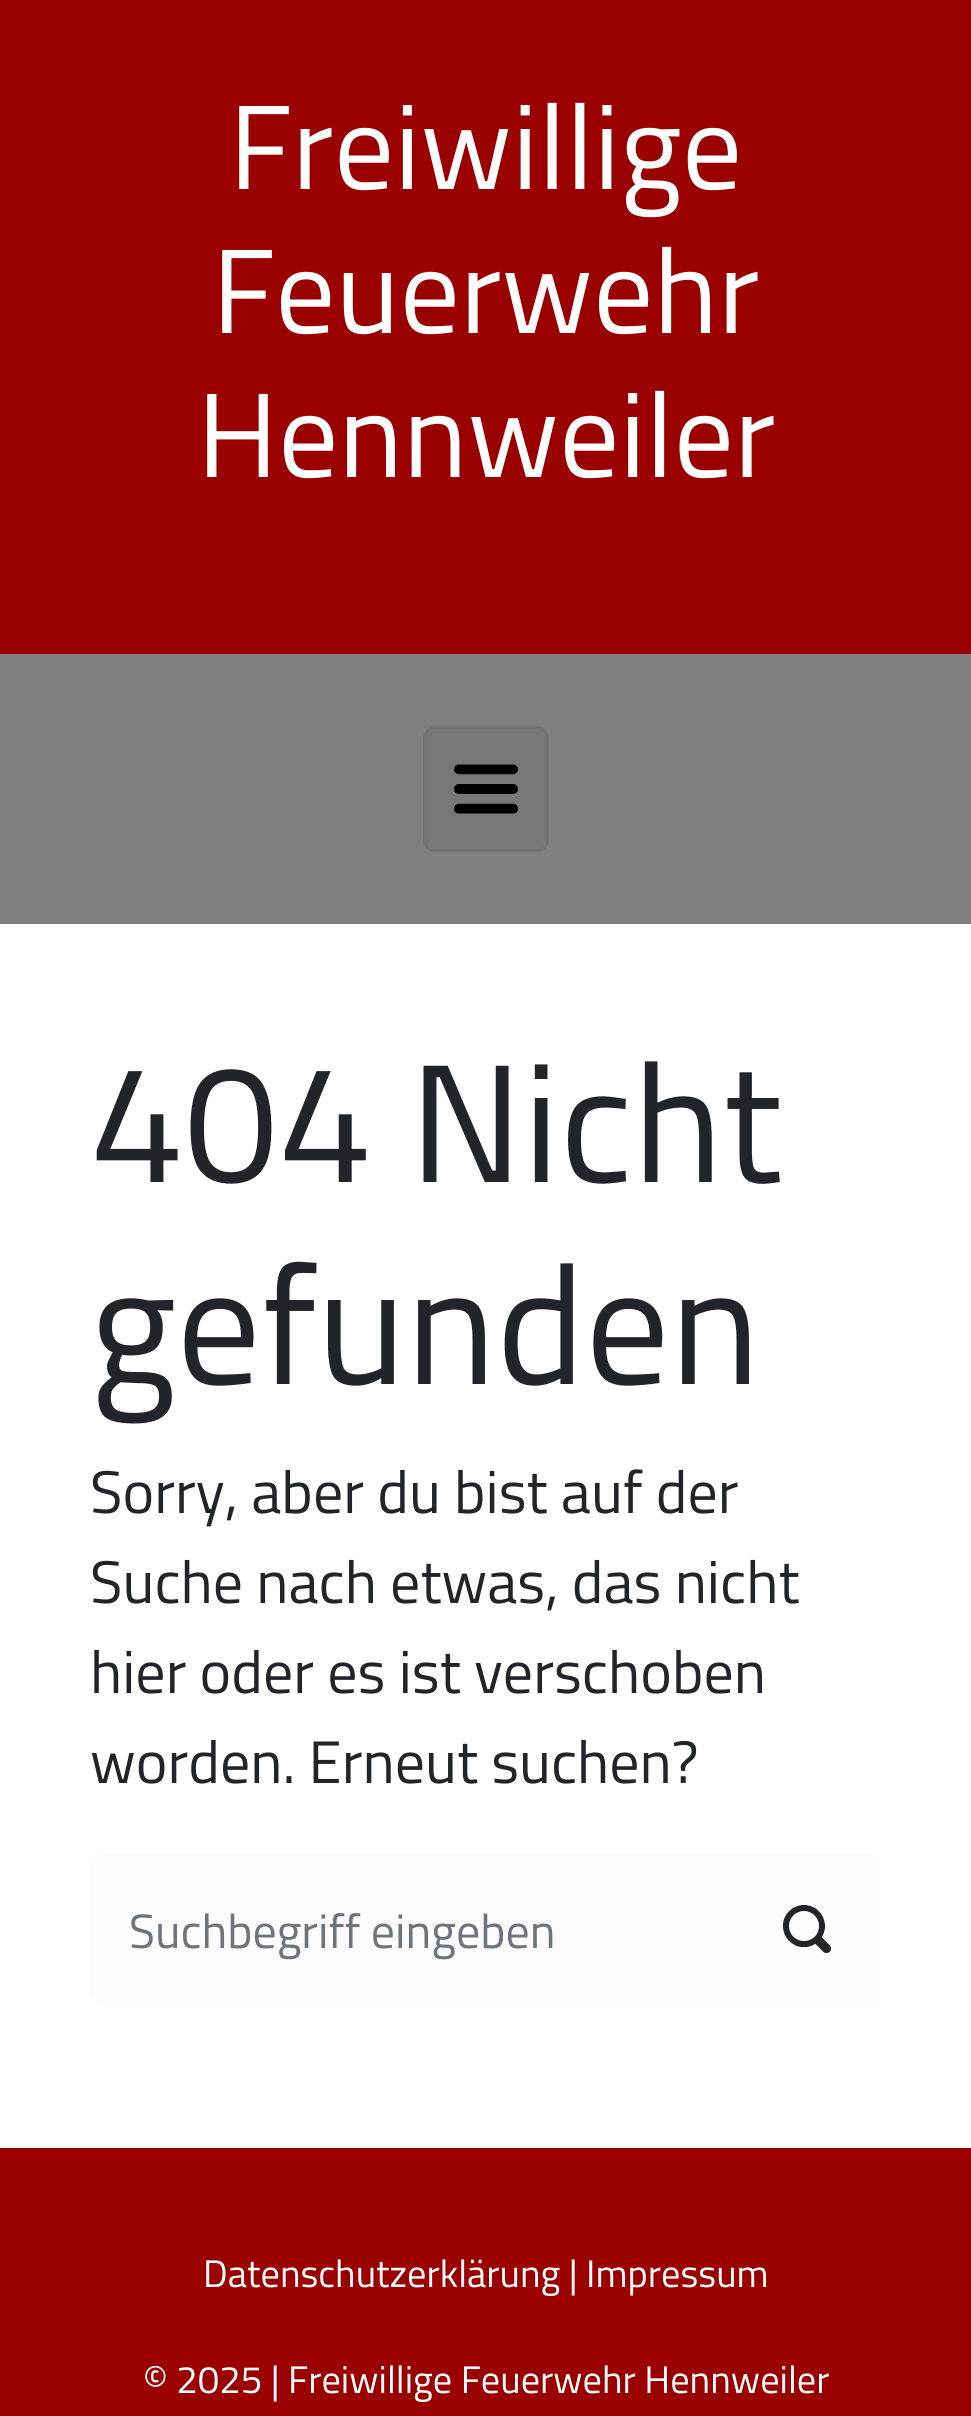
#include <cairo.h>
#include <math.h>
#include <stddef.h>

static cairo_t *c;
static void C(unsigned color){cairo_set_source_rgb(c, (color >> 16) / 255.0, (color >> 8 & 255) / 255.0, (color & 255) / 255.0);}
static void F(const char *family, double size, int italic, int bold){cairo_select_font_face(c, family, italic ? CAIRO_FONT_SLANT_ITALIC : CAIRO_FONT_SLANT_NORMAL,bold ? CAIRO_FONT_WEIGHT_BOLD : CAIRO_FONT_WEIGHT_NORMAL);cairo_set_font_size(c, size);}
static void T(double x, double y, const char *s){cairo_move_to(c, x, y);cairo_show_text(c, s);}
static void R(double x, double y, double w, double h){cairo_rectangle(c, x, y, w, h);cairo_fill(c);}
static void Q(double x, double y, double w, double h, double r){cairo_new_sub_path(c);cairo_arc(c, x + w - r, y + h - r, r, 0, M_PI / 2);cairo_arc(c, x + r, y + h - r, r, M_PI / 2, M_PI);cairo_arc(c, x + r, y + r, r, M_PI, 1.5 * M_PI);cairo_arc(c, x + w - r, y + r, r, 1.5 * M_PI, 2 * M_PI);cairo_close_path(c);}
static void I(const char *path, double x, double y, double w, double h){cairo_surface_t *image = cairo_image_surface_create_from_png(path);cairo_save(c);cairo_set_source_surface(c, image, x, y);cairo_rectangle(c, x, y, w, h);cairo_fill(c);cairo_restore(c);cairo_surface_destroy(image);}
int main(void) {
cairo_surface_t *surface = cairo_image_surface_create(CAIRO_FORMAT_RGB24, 971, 2416);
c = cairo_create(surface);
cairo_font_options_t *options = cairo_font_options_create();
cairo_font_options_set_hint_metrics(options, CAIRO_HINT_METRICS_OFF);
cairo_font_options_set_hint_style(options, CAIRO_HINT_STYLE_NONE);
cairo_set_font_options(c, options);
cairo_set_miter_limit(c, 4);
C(0x9a0000);
cairo_paint(c);
F("Titillium Web",120,0,0);
C(0xffffff);
T(229,189,"Freiwillige");
T(212,333,"Feuerwehr");
T(197,477,"Hennweiler");
C(0x808080);
R(0,654,971,270);
C(0x787878);
Q(424.5,727.5,123,123,10.5);
cairo_fill_preserve(c);
C(0x747474);
cairo_set_line_width(c,3);
cairo_stroke(c);
I("1.png",453,764,65,50);
C(0xffffff);
R(0,924,971,1224);
F("Titillium Web",168,0,0);
C(0x212529);
T(90,1182,"404 Nicht");
T(90,1384,"gefunden");
F("Titillium Web",60,0,0);
T(90,1513,"Sorry, aber du bist auf der");
T(90,1603,"Suche nach etwas, das nicht");
T(90,1693,"hier oder es ist verschoben");
T(90,1783,"worden. Erneut suchen?");
C(0xfcfcfc);
Q(91.5,1855.5,789,147,10.5);
cairo_fill_preserve(c);
cairo_stroke(c);
F("Titillium Web",48,0,0);
C(0x6c757d);
T(129,1948,"Suchbegriff eingeben");
I("2.png",783,1905,48,48);
F("Titillium Web",38.4,0,0);
C(0xffffff);
T(203,2287,"Datenschutzerklärung | Impressum");
T(143,2393,"© 2025 | Freiwillige Feuerwehr Hennweiler");
cairo_surface_write_to_png(surface, "o.png");
cairo_font_options_destroy(options);
cairo_destroy(c);
cairo_surface_destroy(surface);
return 0;
}
